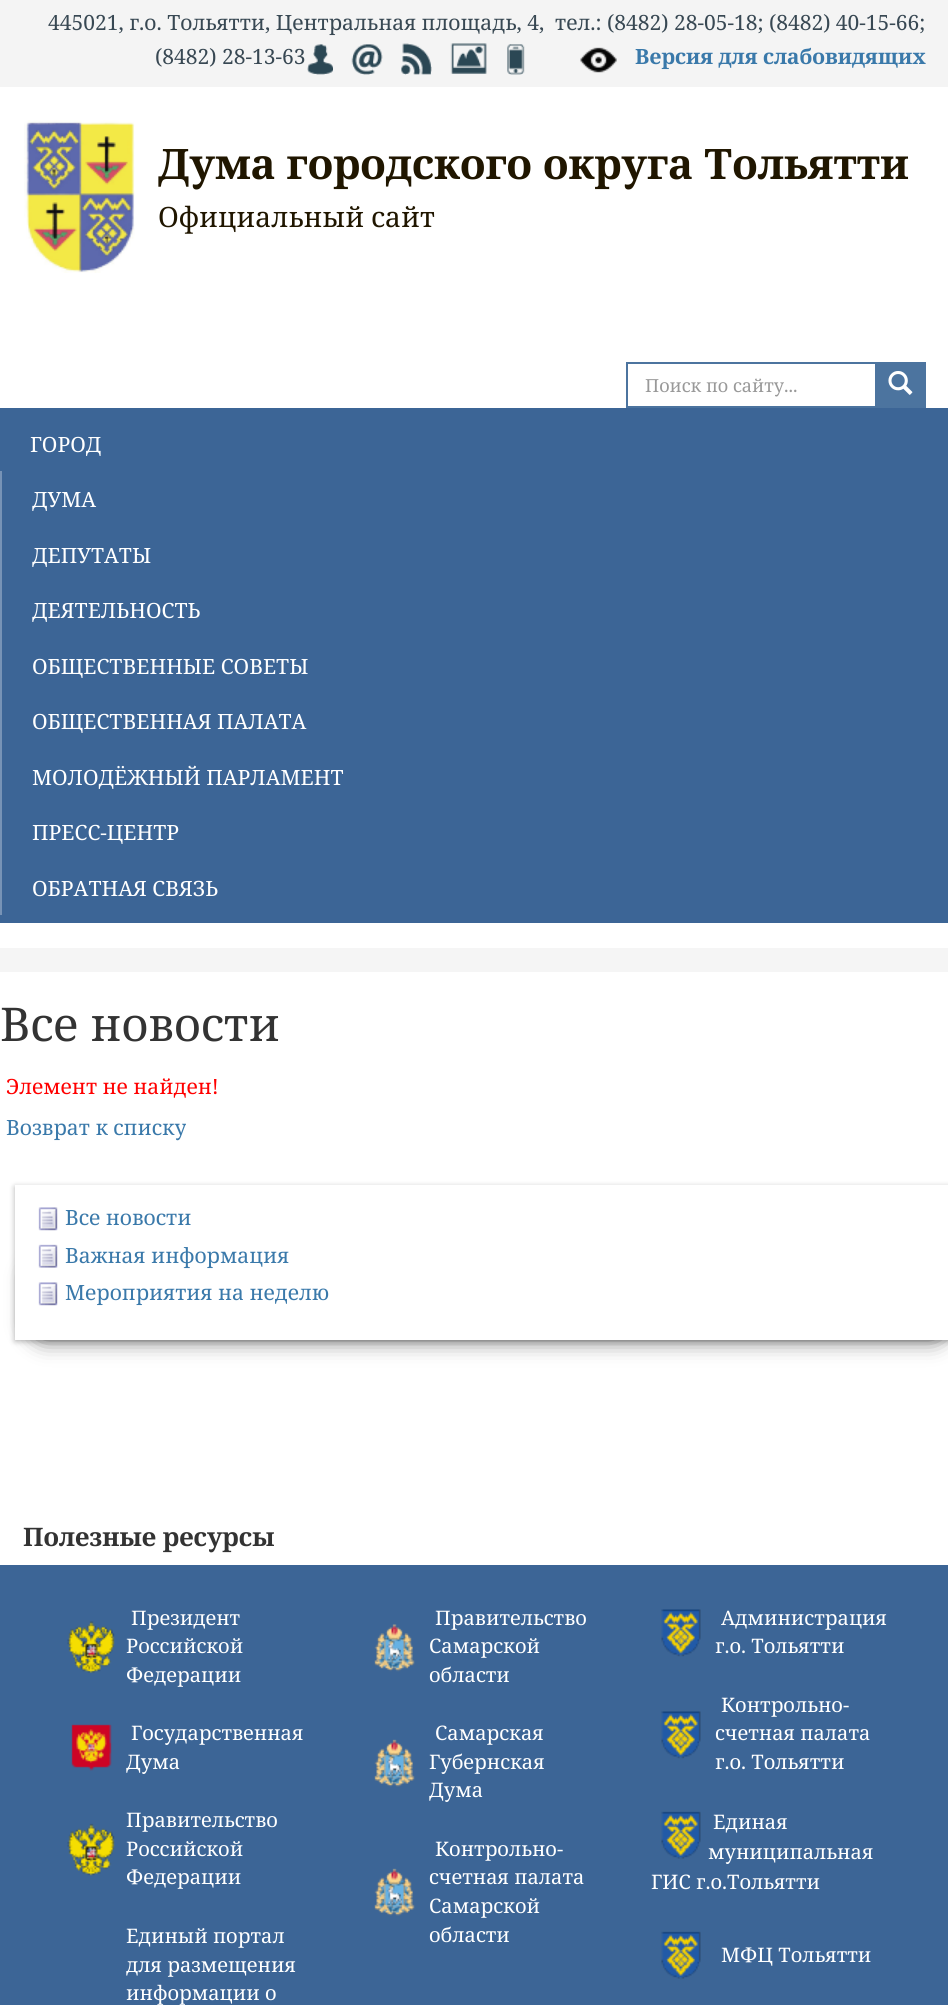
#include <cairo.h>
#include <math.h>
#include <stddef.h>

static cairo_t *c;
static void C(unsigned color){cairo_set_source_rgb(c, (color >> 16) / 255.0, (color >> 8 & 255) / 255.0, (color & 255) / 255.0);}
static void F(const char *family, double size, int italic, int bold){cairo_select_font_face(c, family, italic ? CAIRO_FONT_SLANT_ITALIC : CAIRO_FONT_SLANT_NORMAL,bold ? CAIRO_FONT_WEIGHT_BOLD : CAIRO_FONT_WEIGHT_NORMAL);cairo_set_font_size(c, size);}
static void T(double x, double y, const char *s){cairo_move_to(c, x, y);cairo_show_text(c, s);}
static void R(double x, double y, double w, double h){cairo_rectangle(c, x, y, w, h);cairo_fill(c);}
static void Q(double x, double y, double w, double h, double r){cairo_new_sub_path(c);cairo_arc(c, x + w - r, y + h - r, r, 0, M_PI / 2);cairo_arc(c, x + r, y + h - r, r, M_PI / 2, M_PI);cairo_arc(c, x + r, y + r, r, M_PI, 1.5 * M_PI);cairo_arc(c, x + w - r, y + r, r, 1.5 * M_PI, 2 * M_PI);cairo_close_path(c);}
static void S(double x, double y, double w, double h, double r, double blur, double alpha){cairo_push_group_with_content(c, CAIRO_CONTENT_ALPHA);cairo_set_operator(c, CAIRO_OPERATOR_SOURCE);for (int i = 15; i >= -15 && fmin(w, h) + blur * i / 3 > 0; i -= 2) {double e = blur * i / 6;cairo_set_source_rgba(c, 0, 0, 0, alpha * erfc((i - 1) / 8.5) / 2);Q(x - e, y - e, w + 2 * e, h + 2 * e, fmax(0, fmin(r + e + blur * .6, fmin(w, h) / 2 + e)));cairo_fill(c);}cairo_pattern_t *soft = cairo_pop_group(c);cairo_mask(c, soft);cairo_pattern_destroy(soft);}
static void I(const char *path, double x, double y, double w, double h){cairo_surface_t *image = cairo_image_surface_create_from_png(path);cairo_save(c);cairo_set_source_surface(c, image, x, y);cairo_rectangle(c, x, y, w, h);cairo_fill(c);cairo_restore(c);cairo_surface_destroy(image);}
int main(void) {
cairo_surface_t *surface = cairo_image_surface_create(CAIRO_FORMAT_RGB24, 948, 2005);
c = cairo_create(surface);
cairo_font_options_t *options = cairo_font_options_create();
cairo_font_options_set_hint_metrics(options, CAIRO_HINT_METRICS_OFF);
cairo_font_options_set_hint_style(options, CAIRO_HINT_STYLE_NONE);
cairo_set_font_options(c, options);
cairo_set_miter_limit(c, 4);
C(0xffffff);
cairo_paint(c);
C(0xf4f4f4);
R(0,0,948,87);
F("Noto Serif",21,0,0);
C(0x384853);
T(48,30,"445021, г.о. Тольятти, Центральная площадь, 4,  тел.: (8482) 28-05-18; (8482) 40-15-66;");
T(155,64,"(8482) 28-13-63");
I("1.png",307,44,26,31);
I("2.png",351,44,32,31);
I("3.png",401,43,31,32);
I("4.png",450,43,37,31);
I("5.png",507,44,18,31);
I("6.png",580,47,37,26);
F("Noto Serif",21,0,1);
C(0x3a79aa);
T(635,64,"Версия для слабовидящих");
I("7.png",24,120,111,153);
F("Noto Serif",42,0,1);
C(0x201600);
T(158,179,"Дума городского округа Тольятти");
F("Noto Serif",28,0,0);
T(158,227,"Официальный сайт");
cairo_rectangle(c,627,363,298,44);
C(0x4c749f);
cairo_stroke(c);
F("Noto Serif",18,0,0);
C(0x999999);
T(645,392,"Поиск по сайту...");
C(0x4c749f);
R(875,364,49,42);
I("8.png",888,371,25,24);
C(0x3c6596);
R(0,408,948,515);
F("Noto Serif",21,0,0);
C(0xffffff);
T(30,452,"ГОРОД");
C(0x7793b6);
R(0,471,2,444);
C(0xffffff);
T(32,507,"ДУМА");
T(32,563,"ДЕПУТАТЫ");
T(32,618,"ДЕЯТЕЛЬНОСТЬ");
T(32,674,"ОБЩЕСТВЕННЫЕ СОВЕТЫ");
T(32,729,"ОБЩЕСТВЕННАЯ ПАЛАТА");
T(32,785,"МОЛОДЁЖНЫЙ ПАРЛАМЕНТ");
T(32,840,"ПРЕСС-ЦЕНТР");
T(32,896,"ОБРАТНАЯ СВЯЗЬ");
C(0xf5f5f5);
R(0,948,948,24);
F("Noto Serif",46.5,0,0);
C(0x333333);
T(0,1041,"Все новости");
F("Noto Serif",21,0,0);
C(0xff0000);
T(6,1094,"Элемент не найден!");
C(0x3a79aa);
T(6,1135,"Возврат к списку");
C(0x000000);
S(15,1187,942,154,0,3,.3);
S(30,1262,918,78,15,11,.6);
C(0xffffff);
R(15,1185,933,155);
I("9.png",38,1207,20,24);
C(0x3a79aa);
T(65,1225,"Все новости");
I("10.png",38,1244,20,24);
T(65,1263,"Важная информация");
I("9.png",38,1282,20,24);
T(65,1300,"Мероприятия на неделю");
F("Noto Serif",25.5,0,1);
C(0x333333);
T(23,1546,"Полезные ресурсы");
C(0x3c6596);
R(0,1565,948,440);
I("11.png",67,1621,48,52);
F("Noto Serif",20,0,0);
C(0xffffff);
T(131,1625,"Президент");
T(126,1653,"Российской");
T(126,1682,"Федерации");
I("12.png",71,1724,41,47);
T(131,1740,"Государственная");
T(126,1769,"Дума");
I("13.png",67,1823,48,53);
T(126,1827,"Правительство");
T(126,1856,"Российской");
T(126,1884,"Федерации");
T(126,1943,"Единый портал");
T(126,1972,"для размещения");
T(126,2000,"информации о");
I("14.png",374,1624,41,48);
T(435,1625,"Правительство");
T(429,1653,"Самарской");
T(429,1682,"области");
I("15.png",374,1739,41,48);
T(435,1740,"Самарская");
T(429,1769,"Губернская");
T(429,1797,"Дума");
I("15.png",374,1868,41,48);
T(435,1856,"Контрольно-");
T(429,1884,"счетная палата");
T(429,1913,"Самарской");
T(429,1942,"области");
I("16.png",661,1609,40,48);
T(721,1625,"Администрация");
T(715,1653,"г.о. Тольятти");
I("16.png",661,1711,40,48);
T(721,1712,"Контрольно-");
T(715,1740,"счетная палата");
T(715,1769,"г.о. Тольятти");
I("17.png",661,1811,40,48);
T(713,1829,"Единая");
T(708,1859,"муниципальная");
T(651,1889,"ГИС г.о.Тольятти");
I("17.png",661,1931,40,48);
T(721,1962,"МФЦ Тольятти");
cairo_surface_write_to_png(surface, "o.png");
cairo_font_options_destroy(options);
cairo_destroy(c);
cairo_surface_destroy(surface);
return 0;
}
